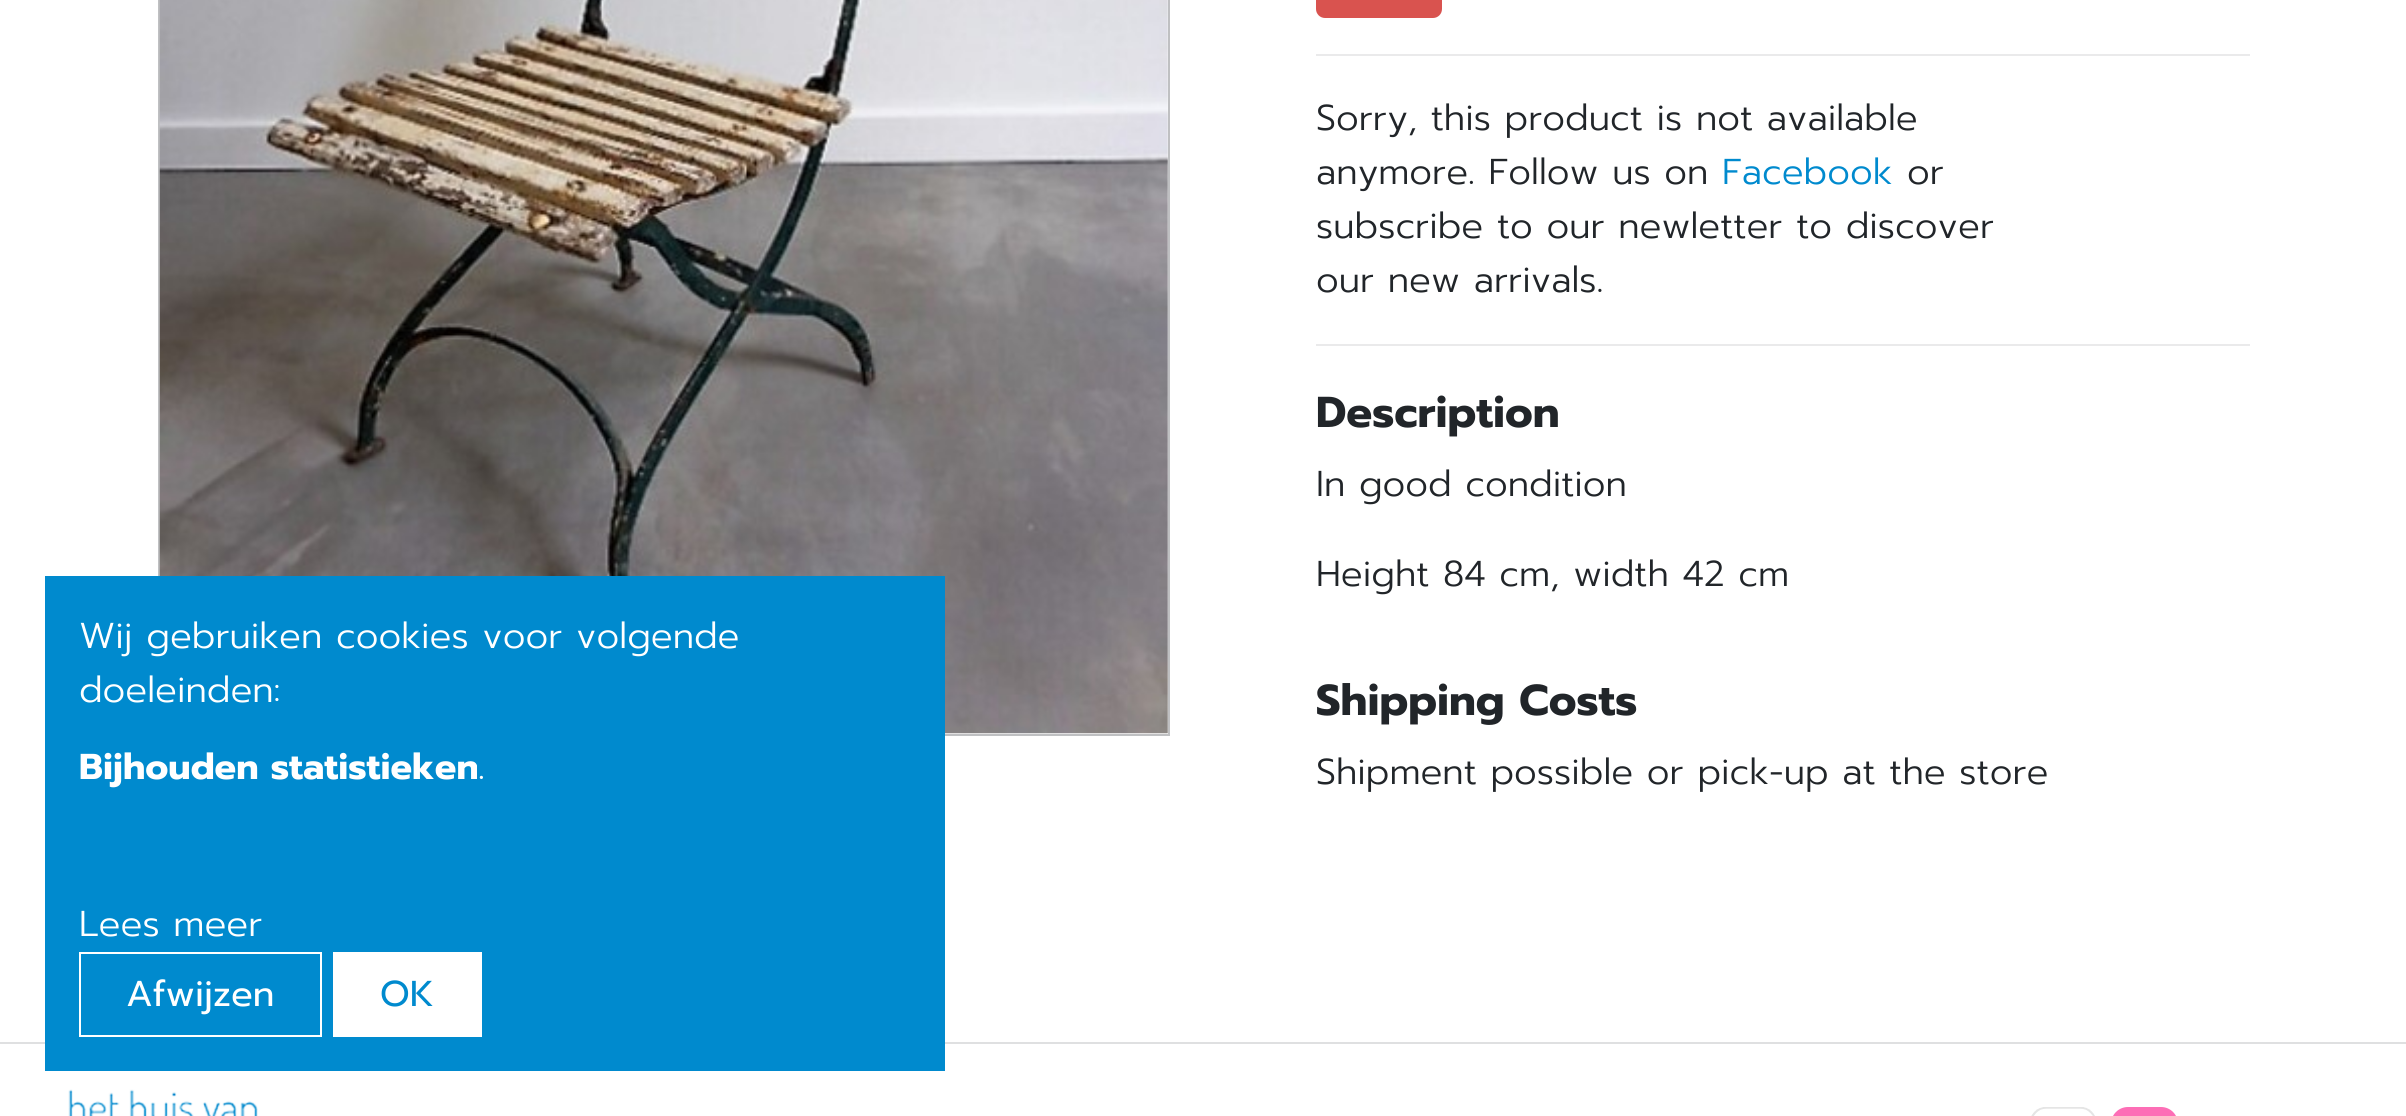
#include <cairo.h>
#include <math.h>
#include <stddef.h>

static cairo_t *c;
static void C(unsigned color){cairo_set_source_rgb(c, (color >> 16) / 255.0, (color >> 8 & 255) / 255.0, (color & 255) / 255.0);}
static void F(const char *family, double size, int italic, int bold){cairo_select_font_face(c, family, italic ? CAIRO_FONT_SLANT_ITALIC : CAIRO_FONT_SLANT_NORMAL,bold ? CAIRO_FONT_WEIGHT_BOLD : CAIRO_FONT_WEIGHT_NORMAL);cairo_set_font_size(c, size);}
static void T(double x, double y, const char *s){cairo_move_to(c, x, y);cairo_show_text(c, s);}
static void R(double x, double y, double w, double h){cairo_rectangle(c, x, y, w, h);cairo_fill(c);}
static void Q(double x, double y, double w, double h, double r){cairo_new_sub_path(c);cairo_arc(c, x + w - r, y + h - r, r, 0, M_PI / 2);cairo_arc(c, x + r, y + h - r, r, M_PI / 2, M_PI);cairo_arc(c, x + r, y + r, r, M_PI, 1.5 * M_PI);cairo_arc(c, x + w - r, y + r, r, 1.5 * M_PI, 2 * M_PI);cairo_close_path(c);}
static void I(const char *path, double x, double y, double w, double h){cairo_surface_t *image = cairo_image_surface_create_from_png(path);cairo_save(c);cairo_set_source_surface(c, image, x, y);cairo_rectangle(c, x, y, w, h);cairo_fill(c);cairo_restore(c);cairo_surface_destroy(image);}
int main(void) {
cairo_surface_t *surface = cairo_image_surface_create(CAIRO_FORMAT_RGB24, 2406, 1116);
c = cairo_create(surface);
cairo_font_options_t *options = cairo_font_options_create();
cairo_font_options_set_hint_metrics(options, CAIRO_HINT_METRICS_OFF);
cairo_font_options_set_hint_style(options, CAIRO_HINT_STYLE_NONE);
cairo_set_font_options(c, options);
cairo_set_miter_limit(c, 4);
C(0xffffff);
cairo_paint(c);
cairo_rectangle(c,159,-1,1010,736);
C(0xbfc0c2);
cairo_stroke(c);
I("1.png",159,0,1009,734);
C(0xdfe0e1);
R(0,1042,2406,2);
C(0x008ace);
R(45,576,900,495);
F("Prompt Light",36,0,0);
C(0xffffff);
T(79,648,"Wij gebruiken cookies voor volgende");
T(79,702,"doeleinden:");
F("Prompt",36,0,1);
T(79,779,"Bijhouden statistieken");
F("Prompt Light",36,0,0);
T(478,779,".");
T(79,936,"Lees meer");
cairo_rectangle(c,80,953,241,83);
cairo_stroke(c);
F("Prompt",36,0,0);
T(126,1006,"Afwijzen");
R(333,952,149,85);
C(0x008ace);
T(380,1006,"OK");
C(0xd9534f);
Q(1316,-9,126,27,9);
cairo_fill(c);
C(0xeaeaeb);
R(1316,54,934,2);
F("Prompt Light",36,0,0);
C(0x212529);
T(1316,130,"Sorry, this product is not available");
T(1316,184,"anymore. Follow us on");
C(0x008ace);
T(1722,184,"Facebook");
C(0x212529);
T(1907,184,"or");
T(1316,238,"subscribe to our newletter to discover");
T(1316,292,"our new arrivals.");
C(0xeaeaeb);
R(1316,344,934,2);
F("Prompt",43.25,0,1);
C(0x212529);
T(1316,427,"Description");
F("Prompt Light",36,0,0);
T(1316,496,"In good condition");
T(1316,586,"Height 84 cm, width 42 cm");
F("Prompt",43.25,0,1);
T(1316,715,"Shipping Costs");
F("Prompt Light",36,0,0);
T(1316,784,"Shipment possible or pick-up at the store");
I("2.png",68,1089,190,27);
I("3.png",2031,1107,64,9);
I("4.png",2113,1107,63,9);
cairo_surface_write_to_png(surface, "o.png");
cairo_font_options_destroy(options);
cairo_destroy(c);
cairo_surface_destroy(surface);
return 0;
}
